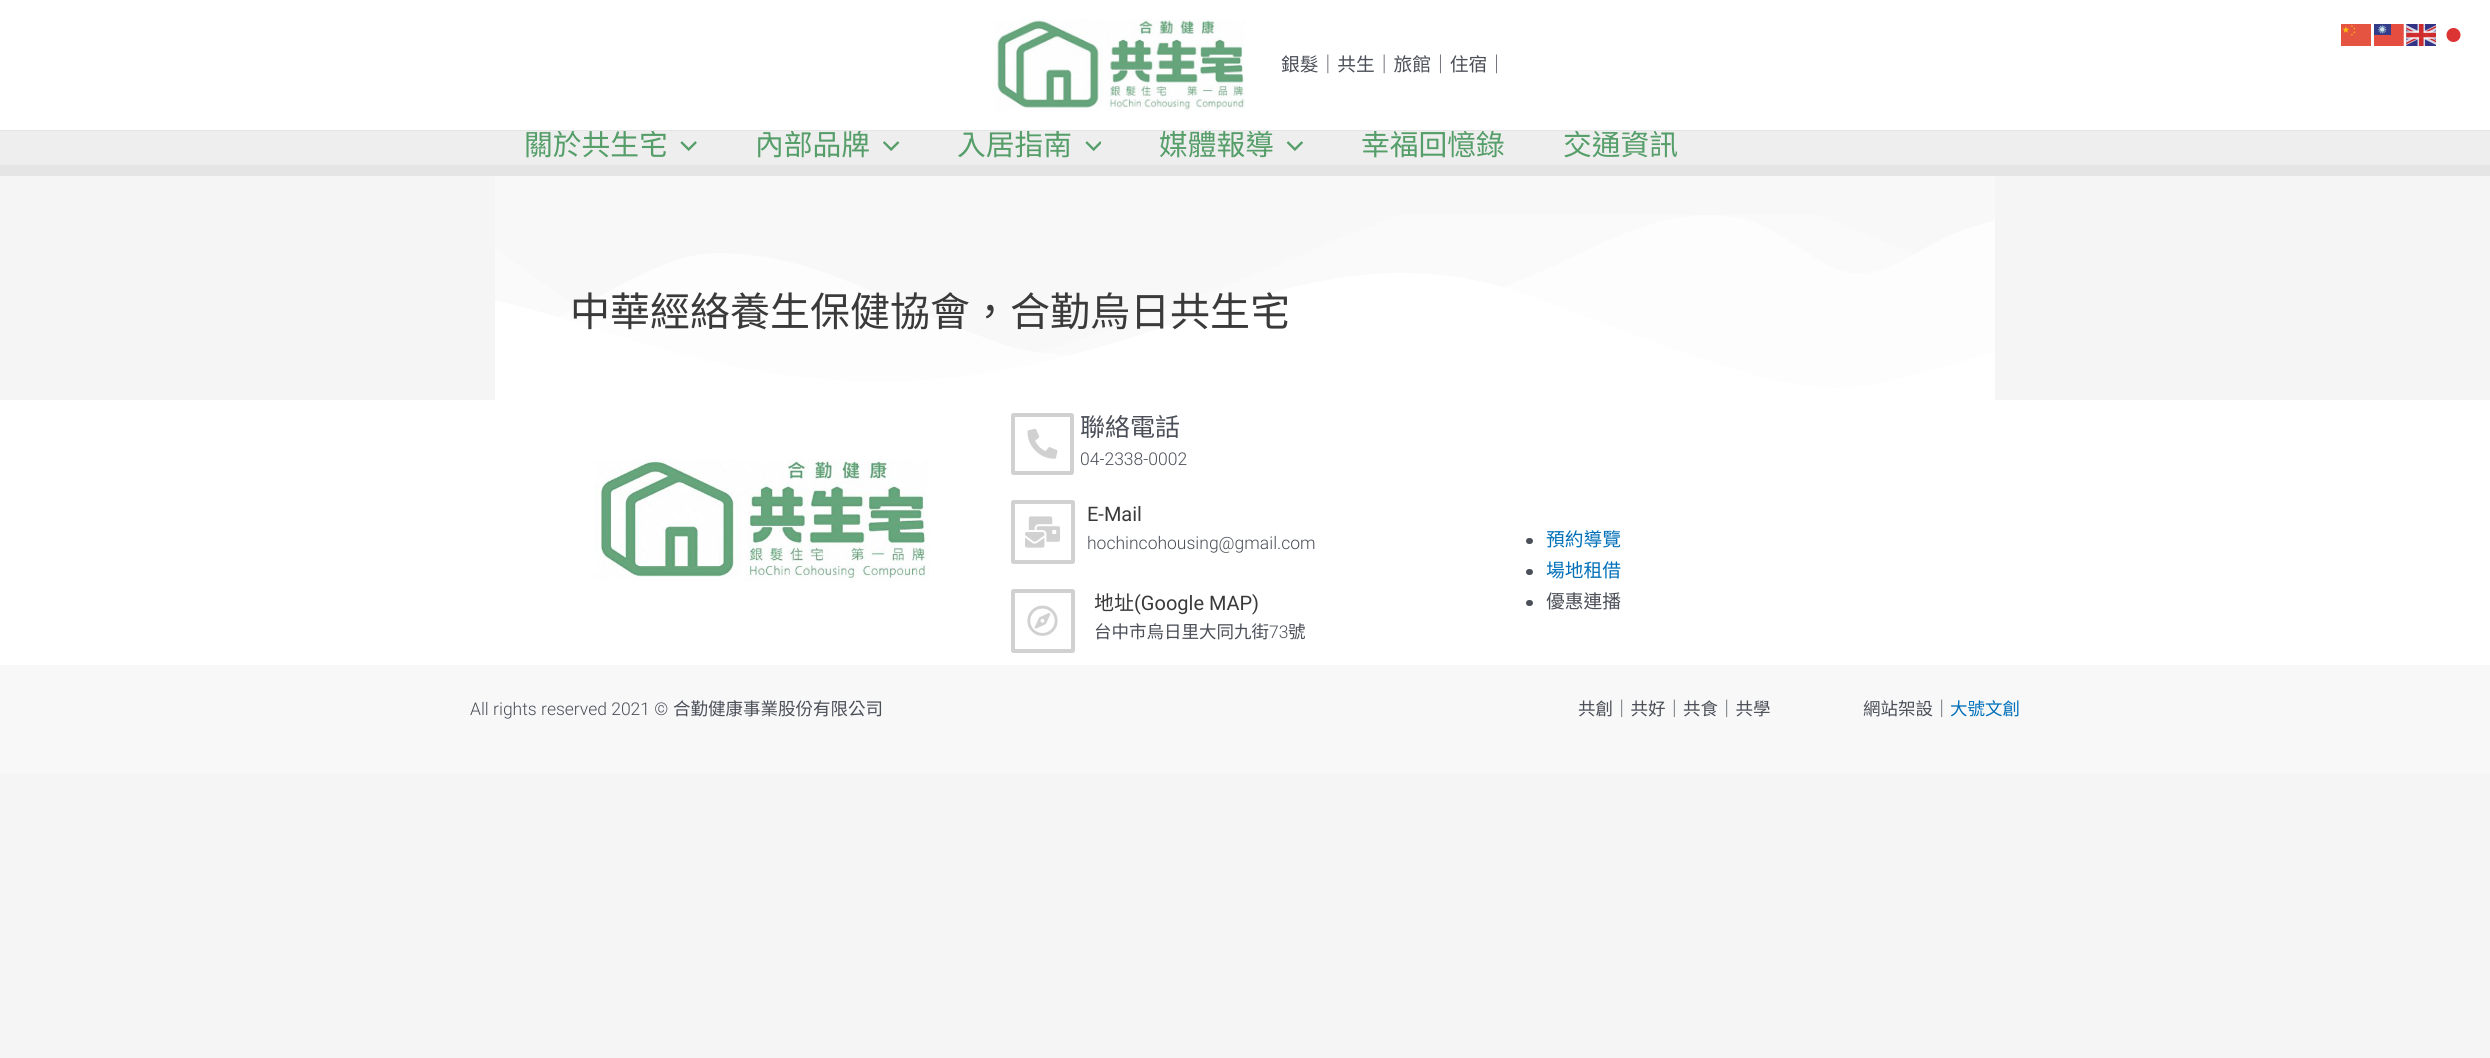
#include <cairo.h>
#include <math.h>
#include <stddef.h>

static cairo_t *c;
static void C(unsigned color){cairo_set_source_rgb(c, (color >> 16) / 255.0, (color >> 8 & 255) / 255.0, (color & 255) / 255.0);}
static void F(const char *family, double size, int italic, int bold){cairo_select_font_face(c, family, italic ? CAIRO_FONT_SLANT_ITALIC : CAIRO_FONT_SLANT_NORMAL,bold ? CAIRO_FONT_WEIGHT_BOLD : CAIRO_FONT_WEIGHT_NORMAL);cairo_set_font_size(c, size);}
static void T(double x, double y, const char *s){cairo_move_to(c, x, y);cairo_show_text(c, s);}
static void R(double x, double y, double w, double h){cairo_rectangle(c, x, y, w, h);cairo_fill(c);}
static void Q(double x, double y, double w, double h, double r){cairo_new_sub_path(c);cairo_arc(c, x + w - r, y + h - r, r, 0, M_PI / 2);cairo_arc(c, x + r, y + h - r, r, M_PI / 2, M_PI);cairo_arc(c, x + r, y + r, r, M_PI, 1.5 * M_PI);cairo_arc(c, x + w - r, y + r, r, 1.5 * M_PI, 2 * M_PI);cairo_close_path(c);}
static void I(const char *path, double x, double y, double w, double h){cairo_surface_t *image = cairo_image_surface_create_from_png(path);cairo_save(c);cairo_set_source_surface(c, image, x, y);cairo_rectangle(c, x, y, w, h);cairo_fill(c);cairo_restore(c);cairo_surface_destroy(image);}
int main(void) {
cairo_surface_t *surface = cairo_image_surface_create(CAIRO_FORMAT_RGB24, 2490, 1058);
c = cairo_create(surface);
cairo_font_options_t *options = cairo_font_options_create();
cairo_font_options_set_hint_metrics(options, CAIRO_HINT_METRICS_OFF);
cairo_font_options_set_hint_style(options, CAIRO_HINT_STYLE_NONE);
cairo_set_font_options(c, options);
cairo_set_miter_limit(c, 4);
C(0xf5f5f5);
cairo_paint(c);
C(0xffffff);
R(0,0,2490,130);
I("1.png",2341,24,30,22);
I("2.png",2374,24,30,22);
I("3.png",2406,24,30,22);
C(0xdc3333);
cairo_arc(c,2453.5,35,7,0,2 * M_PI);
cairo_fill(c);
C(0xeeeeee);
R(0,131,2490,34);
F("Noto Sans CJK TC",28.75,0,0);
C(0x559e69);
T(524,155,"關於共生宅");
T(755,155,"內部品牌");
T(957,155,"入居指南");
T(1159,155,"媒體報導");
T(1361,155,"幸福回憶錄");
T(1563,155,"交通資訊");
C(0xe5e5e5);
R(0,130,2490,1);
I("4.png",993,19,252,92);
F("Noto Sans CJK TC",18.75,0,0);
C(0x4b4f58);
T(1281,71,"銀髮｜共生｜旅館｜住宿｜");
C(0xe5e5e5);
R(0,165,2490,11);
I("5.png",680,141,17,10);
I("6.png",883,141,17,10);
I("7.png",1085,141,16,10);
I("8.png",1286,141,18,10);
C(0xf8f8f8);
R(495,176,1500,213);
I("9.png",495,215,1500,185);
F("Noto Sans CJK TC",40,0,0);
C(0x3a3a3a);
T(570,326,"中華經絡養生保健協會，合勤烏日共生宅");
C(0xffffff);
R(0,400,2490,265);
I("10.png",594,459,335,122);
Q(1013,415,59,58,.5);
C(0xd1d1d1);
cairo_set_line_width(c,4);
cairo_stroke(c);
I("11.png",1027,428,31,31);
F("Noto Sans CJK TC",25,0,0);
C(0x4b4f58);
T(1080,436,"聯絡電話");
F("Roboto Light",17.5,0,0);
T(1080,465,"04-2338-0002");
Q(1013,502,60,60,.5);
C(0xd1d1d1);
cairo_stroke(c);
I("12.png",1025,516,35,32);
F("Roboto",20,0,0);
C(0x3a3a3a);
T(1087,521,"E-Mail");
F("Roboto Light",17.5,0,0);
C(0x4b4f58);
T(1087,549,"hochincohousing@gmail.com");
Q(1013,591,60,60,.5);
C(0xd1d1d1);
cairo_stroke(c);
I("13.png",1027,605,31,31);
F("Noto Sans CJK TC",20,0,0);
C(0x3a3a3a);
T(1094,610,"地址");
F("Roboto",20,0,0);
T(1134,610,"(Google MAP)");
F("Noto Sans CJK TC",17.5,0,0);
C(0x4b4f58);
T(1094,638,"台中市烏日里大同九街");
F("Roboto Light",17.5,0,0);
T(1269,638,"73");
F("Noto Sans CJK TC",17.5,0,0);
T(1288,638,"號");
Q(1526,538,7,6,3);
cairo_fill(c);
F("Noto Sans CJK TC",18.75,0,0);
C(0x0170b9);
T(1546,546,"預約導覽");
C(0x4b4f58);
Q(1526,569,7,6,3);
cairo_fill(c);
C(0x0170b9);
T(1546,577,"場地租借");
C(0x4b4f58);
Q(1526,600,7,6,3);
cairo_fill(c);
T(1546,608,"優惠連播");
C(0xf8f8f8);
R(0,665,2490,108);
F("Roboto Light",17.5,0,0);
C(0x4b4f58);
T(470,715,"All rights reserved 2021 ©");
F("Noto Sans CJK TC",17.5,0,0);
T(673,715,"合勤健康事業股份有限公司");
T(1578,715,"共創｜共好｜共食｜共學");
T(1863,715,"網站架設｜");
C(0x0170b9);
T(1950,715,"大號文創");
cairo_surface_write_to_png(surface, "o.png");
cairo_font_options_destroy(options);
cairo_destroy(c);
cairo_surface_destroy(surface);
return 0;
}
